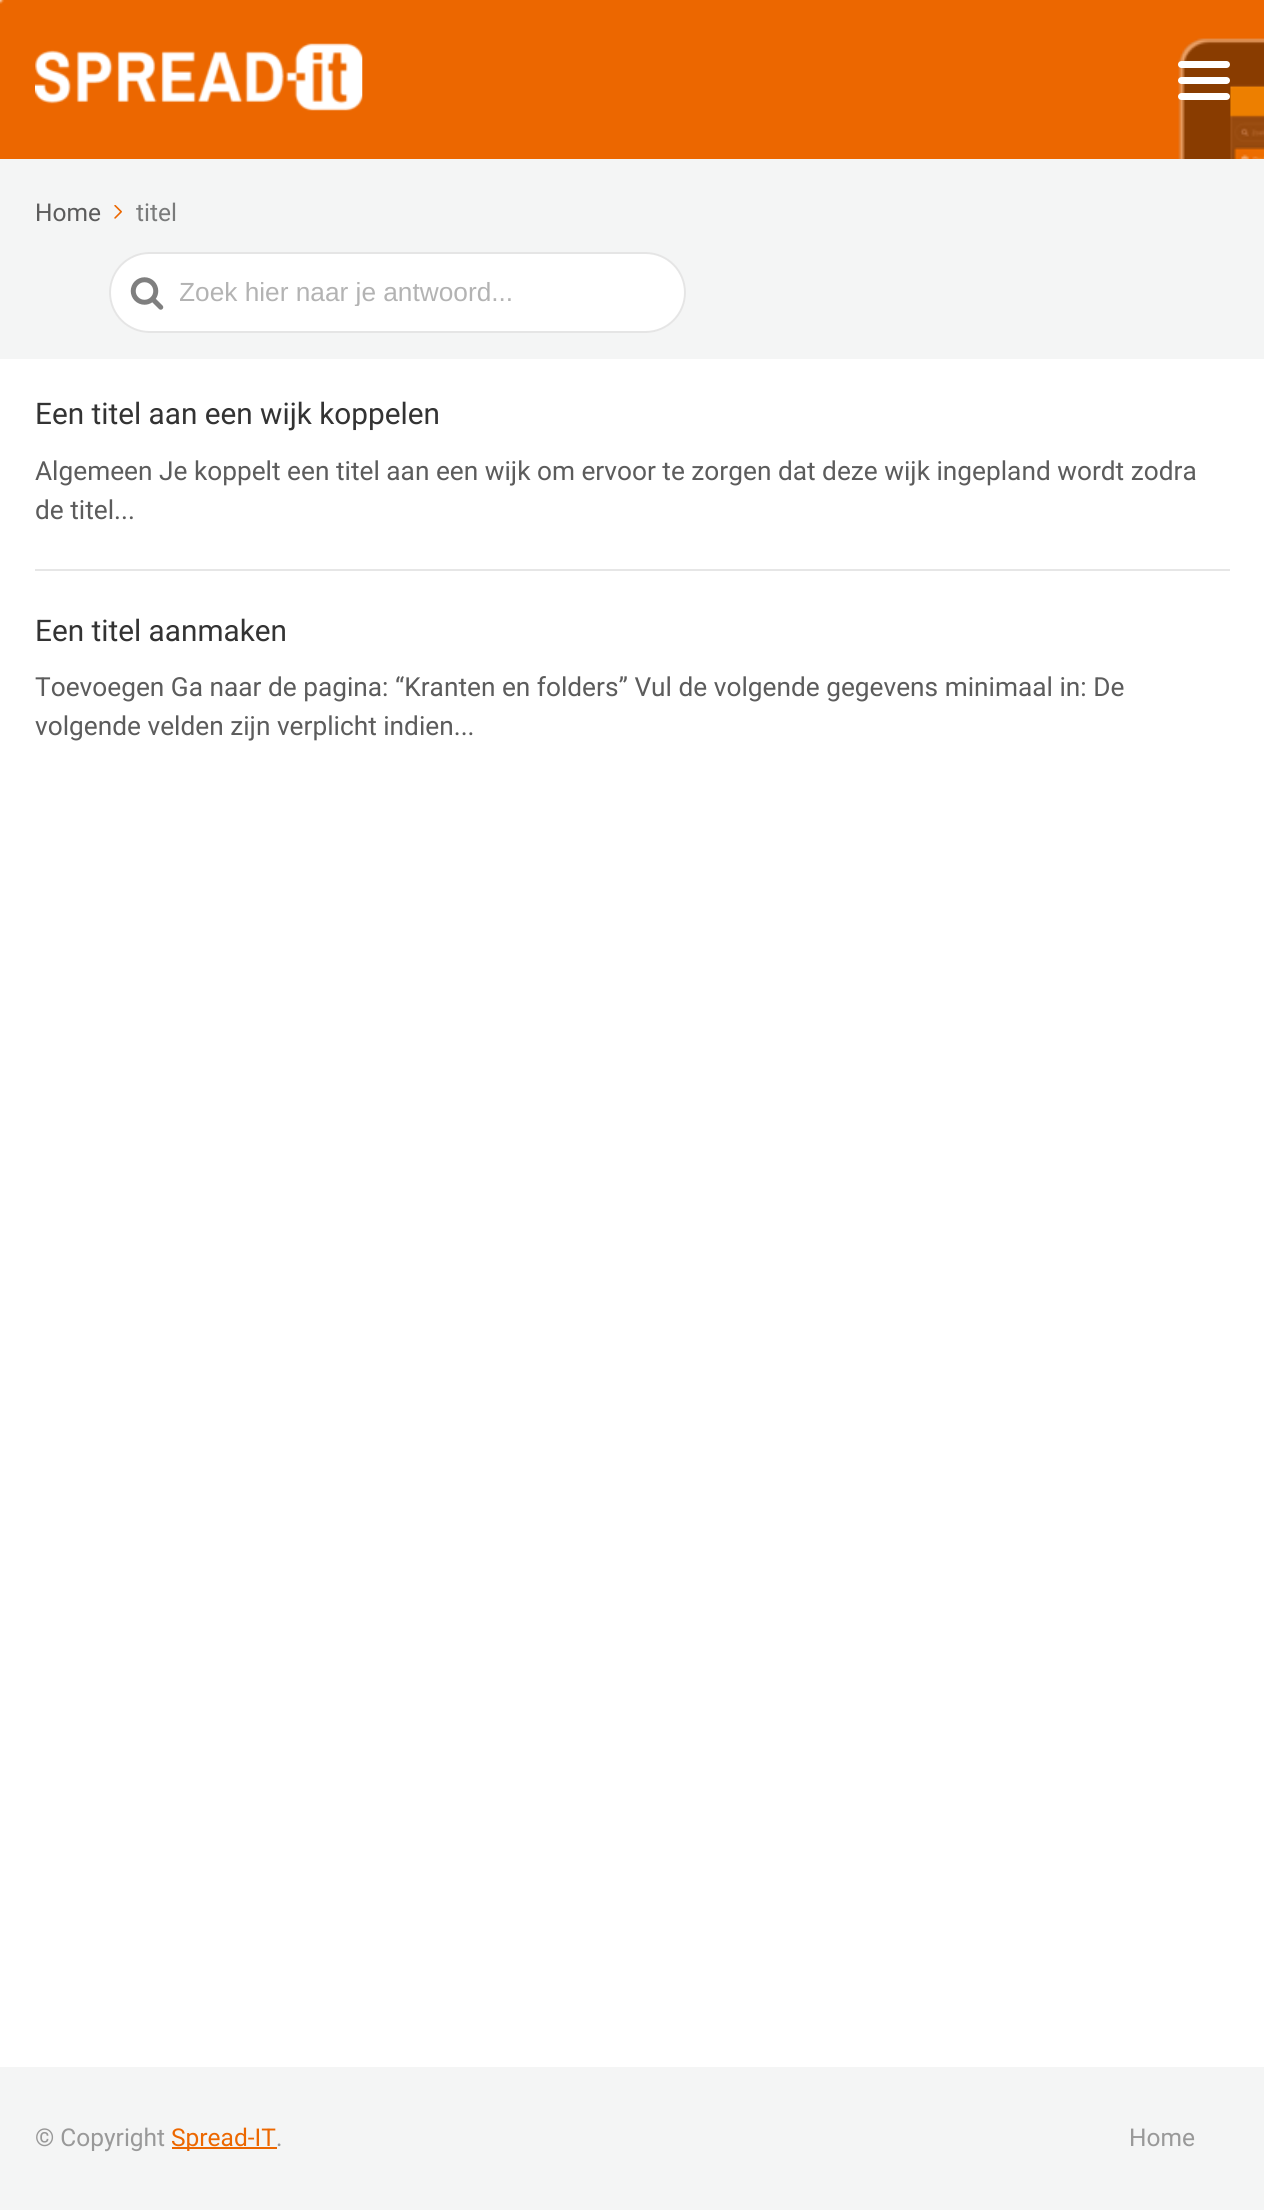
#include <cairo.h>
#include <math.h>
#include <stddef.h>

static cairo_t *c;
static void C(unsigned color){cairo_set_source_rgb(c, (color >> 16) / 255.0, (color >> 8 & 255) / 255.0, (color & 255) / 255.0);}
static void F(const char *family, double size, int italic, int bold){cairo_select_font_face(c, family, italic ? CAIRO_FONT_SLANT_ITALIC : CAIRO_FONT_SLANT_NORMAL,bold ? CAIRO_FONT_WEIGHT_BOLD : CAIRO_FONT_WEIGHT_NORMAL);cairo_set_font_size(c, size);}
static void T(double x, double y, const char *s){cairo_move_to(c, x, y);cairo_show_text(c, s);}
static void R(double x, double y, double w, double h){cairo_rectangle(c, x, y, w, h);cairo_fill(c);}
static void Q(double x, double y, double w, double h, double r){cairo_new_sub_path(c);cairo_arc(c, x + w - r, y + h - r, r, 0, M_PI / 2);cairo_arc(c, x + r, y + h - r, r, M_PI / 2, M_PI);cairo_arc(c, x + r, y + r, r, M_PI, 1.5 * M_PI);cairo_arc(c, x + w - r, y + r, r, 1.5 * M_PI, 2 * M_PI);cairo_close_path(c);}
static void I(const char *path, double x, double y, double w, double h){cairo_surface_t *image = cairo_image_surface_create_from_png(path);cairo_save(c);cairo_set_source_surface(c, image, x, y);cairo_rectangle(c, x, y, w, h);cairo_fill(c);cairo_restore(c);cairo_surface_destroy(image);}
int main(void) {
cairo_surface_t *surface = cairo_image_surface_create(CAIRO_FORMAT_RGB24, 1264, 2210);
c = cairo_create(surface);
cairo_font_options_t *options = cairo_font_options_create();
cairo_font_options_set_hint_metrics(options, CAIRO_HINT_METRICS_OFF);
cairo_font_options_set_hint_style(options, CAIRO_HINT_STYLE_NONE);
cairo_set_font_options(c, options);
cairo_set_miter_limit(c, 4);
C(0xffffff);
cairo_paint(c);
I("1.png",0,0,1264,159);
I("2.png",35,43,328,68);
C(0xffffff);
Q(1178,77,52,7,3.5);
cairo_fill(c);
Q(1178,61,52,7,3.5);
cairo_fill(c);
Q(1178,93,52,7,3.5);
cairo_fill(c);
C(0xf4f5f5);
R(0,159,1264,200);
F("Roboto",24.5,0,0);
C(0x5c5c5c);
T(35,221,"Home");
I("3.png",114,205,8,14);
C(0x7a7b7b);
T(136,221,"titel");
C(0xffffff);
Q(109,252,577,81,40.5);
cairo_fill(c);
Q(110,253,575,79,39.5);
cairo_set_source_rgba(c,0.8,0.8,0.8,0.5);
cairo_stroke(c);
I("4.png",130,277,34,33);
cairo_save(c);
cairo_rectangle(c,180,277,478,29);
cairo_clip(c);
F("Liberation Sans",26.25,0,0);
C(0xb3b3b3);
T(179,301,"Zoek hier naar je antwoord...");
cairo_restore(c);
C(0xe6e6e6);
R(35,569,1195,2);
F("Roboto",29.75,0,0);
C(0x333333);
T(35,424,"Een titel aan een wijk koppelen");
F("Roboto",26.25,0,0);
C(0x5c5c5c);
T(35,480,"Algemeen Je koppelt een titel aan een wijk om ervoor te zorgen dat deze wijk ingepland wordt zodra");
T(35,519,"de titel...");
F("Roboto",29.75,0,0);
C(0x333333);
T(35,641,"Een titel aanmaken");
F("Roboto",26.25,0,0);
C(0x5c5c5c);
T(35,696,"Toevoegen Ga naar de pagina: “Kranten en folders” Vul de volgende gegevens minimaal in: De");
T(35,735,"volgende velden zijn verplicht indien...");
C(0xf4f5f5);
R(0,2067,1264,143);
F("Roboto",24.5,0,0);
C(0x999999);
T(35,2146,"© Copyright");
C(0xec6700);
R(172,2147,105,2);
T(171,2146,"Spread-IT");
C(0x999999);
T(276,2146,".");
T(1129,2146,"Home");
cairo_surface_write_to_png(surface, "o.png");
cairo_font_options_destroy(options);
cairo_destroy(c);
cairo_surface_destroy(surface);
return 0;
}
